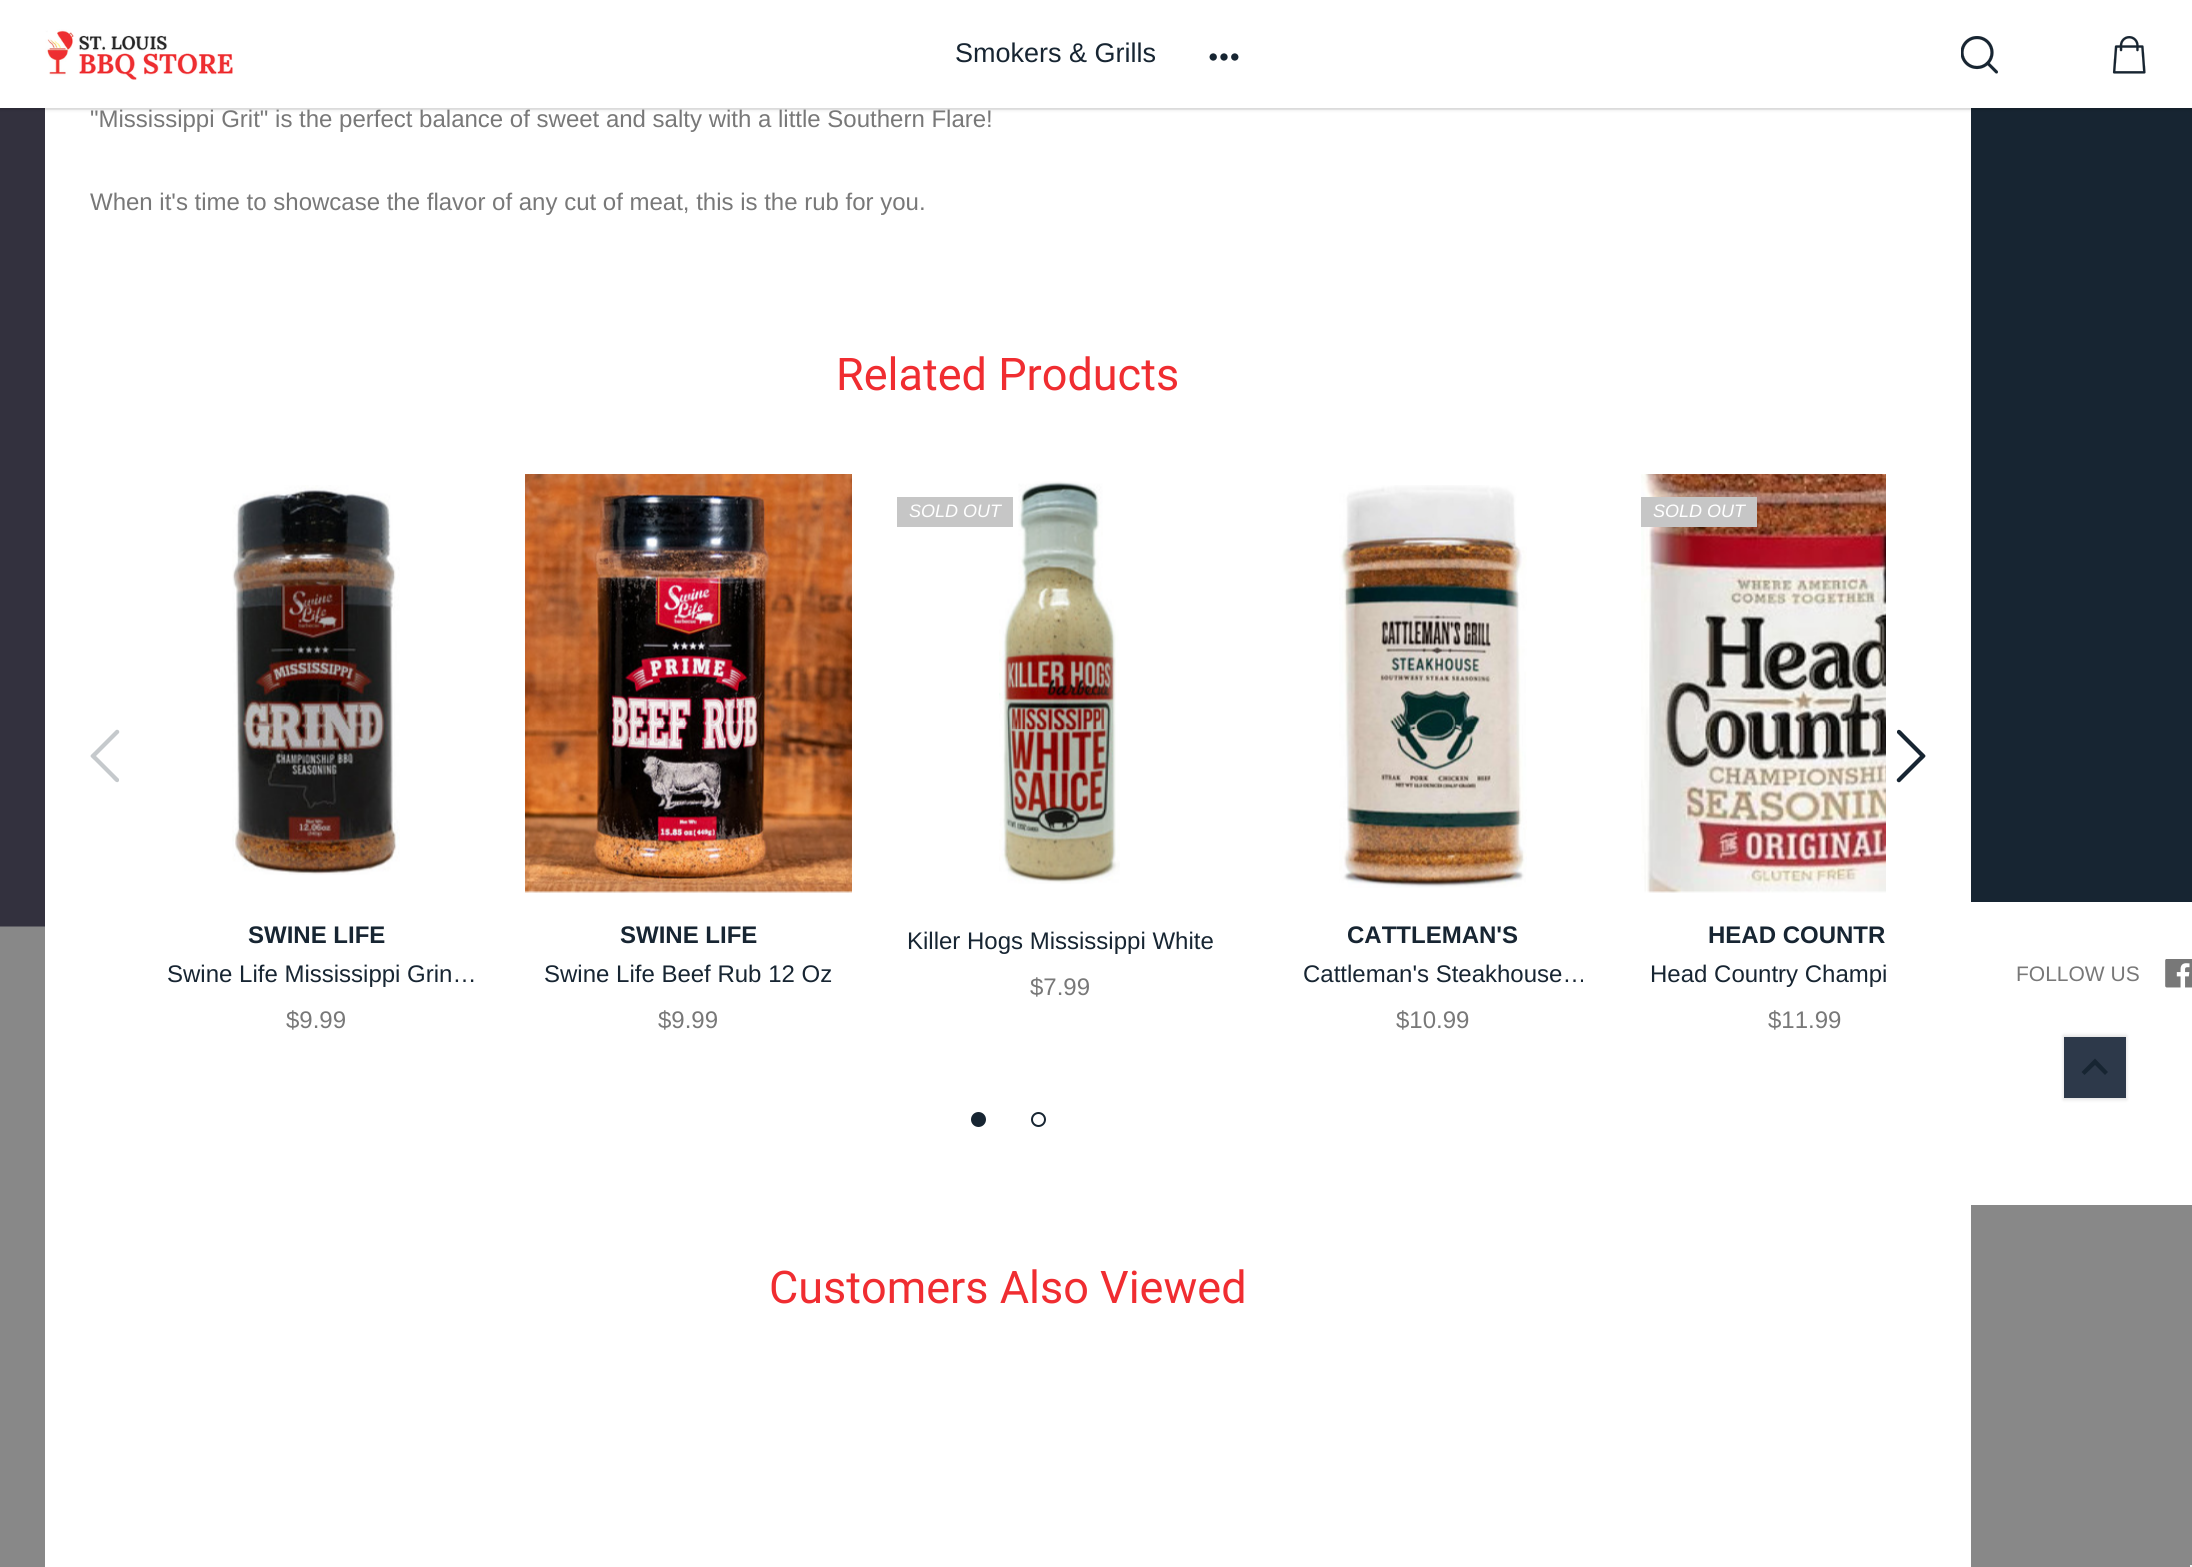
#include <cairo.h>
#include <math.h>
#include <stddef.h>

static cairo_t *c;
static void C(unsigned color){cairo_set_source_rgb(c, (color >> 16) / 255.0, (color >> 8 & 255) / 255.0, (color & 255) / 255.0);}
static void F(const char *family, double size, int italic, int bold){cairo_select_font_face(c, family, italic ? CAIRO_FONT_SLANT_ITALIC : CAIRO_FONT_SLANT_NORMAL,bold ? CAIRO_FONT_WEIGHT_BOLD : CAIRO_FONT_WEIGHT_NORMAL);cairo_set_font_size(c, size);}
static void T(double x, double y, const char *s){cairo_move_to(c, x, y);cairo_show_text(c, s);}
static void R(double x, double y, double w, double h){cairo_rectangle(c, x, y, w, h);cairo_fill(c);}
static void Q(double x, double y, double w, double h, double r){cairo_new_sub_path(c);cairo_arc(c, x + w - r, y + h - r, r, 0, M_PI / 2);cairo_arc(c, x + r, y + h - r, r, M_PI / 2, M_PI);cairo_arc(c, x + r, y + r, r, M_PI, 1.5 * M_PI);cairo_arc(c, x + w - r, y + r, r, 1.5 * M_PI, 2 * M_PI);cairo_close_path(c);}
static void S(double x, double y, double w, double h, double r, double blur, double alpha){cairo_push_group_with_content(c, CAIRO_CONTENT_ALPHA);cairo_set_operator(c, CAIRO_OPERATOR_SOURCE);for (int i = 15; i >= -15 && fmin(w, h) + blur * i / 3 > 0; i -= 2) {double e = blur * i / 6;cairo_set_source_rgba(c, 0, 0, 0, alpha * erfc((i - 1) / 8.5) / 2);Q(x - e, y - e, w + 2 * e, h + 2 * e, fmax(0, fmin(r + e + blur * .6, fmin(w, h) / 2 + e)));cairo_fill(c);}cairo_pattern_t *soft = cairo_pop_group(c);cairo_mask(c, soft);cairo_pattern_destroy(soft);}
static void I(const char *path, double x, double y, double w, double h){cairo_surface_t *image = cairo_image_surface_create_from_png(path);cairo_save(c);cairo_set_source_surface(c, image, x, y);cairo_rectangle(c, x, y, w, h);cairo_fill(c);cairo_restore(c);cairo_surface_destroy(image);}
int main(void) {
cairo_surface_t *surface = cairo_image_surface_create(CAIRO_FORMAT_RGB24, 2192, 1567);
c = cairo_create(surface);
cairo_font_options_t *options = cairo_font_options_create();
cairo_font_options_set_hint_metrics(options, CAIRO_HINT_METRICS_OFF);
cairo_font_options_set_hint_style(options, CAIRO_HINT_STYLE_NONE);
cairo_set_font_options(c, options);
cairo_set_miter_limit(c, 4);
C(0x888888);
cairo_paint(c);
I("1.png",0,108,45,819);
C(0xffffff);
R(45,108,1926,1459);
C(0x172532);
R(1971,108,221,794);
C(0x000000);
S(0,2,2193,108,0,1.5,.1);
F("Liberation Sans",24,0,0);
C(0x787878);
T(90,127,"\"Mississippi Grit\" is the perfect balance of sweet and salty with a little Southern Flare!");
cairo_rectangle(c,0,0,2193,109);
cairo_set_source_rgba(c,0,0,0,0.06);
cairo_stroke(c);
C(0xffffff);
R(0,0,2192,108);
I("2.png",45,29,188,51);
F("Liberation Sans",27,0,0);
C(0x172532);
T(955,62,"Smokers & Grills");
I("3.png",1209,53,30,8);
I("4.png",1961,36,37,38);
I("5.png",2112,36,34,38);
F("Liberation Sans",24,0,0);
C(0x787878);
T(90,210,"When it's time to showcase the flavor of any cut of meat, this is the rub for you.");
F("Roboto",45,0,0);
C(0xf02d31);
T(836,390,"Related Products");
C(0xc5c9cc);
cairo_new_path(c);
cairo_move_to(c,118,782);
cairo_line_to(c,119,781);
cairo_curve_to(c,119,780,119,779,119,779);
cairo_line_to(c,96,756);
cairo_line_to(c,119,733);
cairo_curve_to(c,120,731,118,729,116,730);
cairo_line_to(c,95,751);
cairo_curve_to(c,89,757,89,755,95,761);
cairo_line_to(c,112,778);
cairo_curve_to(c,114,780,116,783,118,782);
cairo_close_path(c);
cairo_fill(c);
I("6.png",232,485,168,390);
F("Liberation Sans",24,0,1);
C(0x172532);
T(248,943,"SWINE LIFE");
F("Liberation Sans",24,0,0);
T(167,982,"Swine Life Mississippi Grin…");
C(0x787878);
T(286,1028,"$9.99");
I("7.png",525,474,327,419);
F("Liberation Sans",24,0,1);
C(0x172532);
T(620,943,"SWINE LIFE");
F("Liberation Sans",24,0,0);
T(544,982,"Swine Life Beef Rub 12 Oz");
C(0x787878);
T(658,1028,"$9.99");
I("8.png",999,481,121,403);
C(0xc6c6c6);
R(897,497,116,30);
F("Liberation Sans",18,1,0);
C(0xffffff);
T(909,517,"SOLD OUT");
F("Liberation Sans",24,0,0);
C(0x172532);
T(907,949,"Killer Hogs Mississippi White");
C(0x787878);
T(1030,995,"$7.99");
I("9.png",1339,485,188,403);
F("Liberation Sans",24,0,1);
C(0x172532);
T(1347,943,"CATTLEMAN'S");
F("Liberation Sans",24,0,0);
T(1303,982,"Cattleman's Steakhouse…");
C(0x787878);
T(1396,1028,"$10.99");
I("10.png",1641,474,245,419);
C(0xc6c6c6);
R(1641,497,116,30);
F("Liberation Sans",18,1,0);
C(0xffffff);
T(1653,517,"SOLD OUT");
F("Liberation Sans",24,0,1);
C(0x172532);
T(1708,943,"HEAD COUNTR");
cairo_save(c);
cairo_rectangle(c,1641,954,245,39);
cairo_clip(c);
F("Liberation Sans",24,0,0);
T(1650,982,"Head Country Champi");
cairo_restore(c);
F("Liberation Sans",24,0,0);
C(0x787878);
T(1768,1028,"$11.99");
C(0x172532);
cairo_new_path(c);
cairo_move_to(c,1898,730);
cairo_line_to(c,1897,731);
cairo_curve_to(c,1897,732,1897,733,1897,733);
cairo_line_to(c,1920,756);
cairo_line_to(c,1897,779);
cairo_curve_to(c,1896,781,1898,783,1900,782);
cairo_line_to(c,1921,761);
cairo_curve_to(c,1927,755,1927,757,1921,751);
cairo_line_to(c,1904,734);
cairo_curve_to(c,1902,732,1900,729,1898,730);
cairo_close_path(c);
cairo_fill(c);
cairo_arc(c,978.5,1119.5,6.5,0,2 * M_PI);
cairo_fill_preserve(c);
cairo_stroke(c);
cairo_arc(c,1038.5,1119.5,6.5,0,2 * M_PI);
cairo_stroke(c);
F("Roboto",45,0,0);
C(0xf02d31);
T(769,1303,"Customers Also Viewed");
C(0xffffff);
R(1971,902,221,303);
F("Liberation Sans",21,0,0);
C(0x787878);
T(2016,981,"FOLLOW US");
I("11.png",2165,959,27,29);
C(0x000000);
S(2063,1035,64,65,0,1.5,.1);
C(0x2d394a);
R(2064,1037,62,61);
C(0x172532);
cairo_new_path(c);
cairo_move_to(c,2105,1075);
cairo_line_to(c,2095,1065);
cairo_line_to(c,2084.5,1075);
cairo_line_to(c,2081.5,1072);
cairo_line_to(c,2095,1058.5);
cairo_line_to(c,2108,1072);
cairo_close_path(c);
cairo_fill(c);
C(0xf5f5f5);
R(2190,1565,2,2);
cairo_surface_write_to_png(surface, "o.png");
cairo_font_options_destroy(options);
cairo_destroy(c);
cairo_surface_destroy(surface);
return 0;
}
